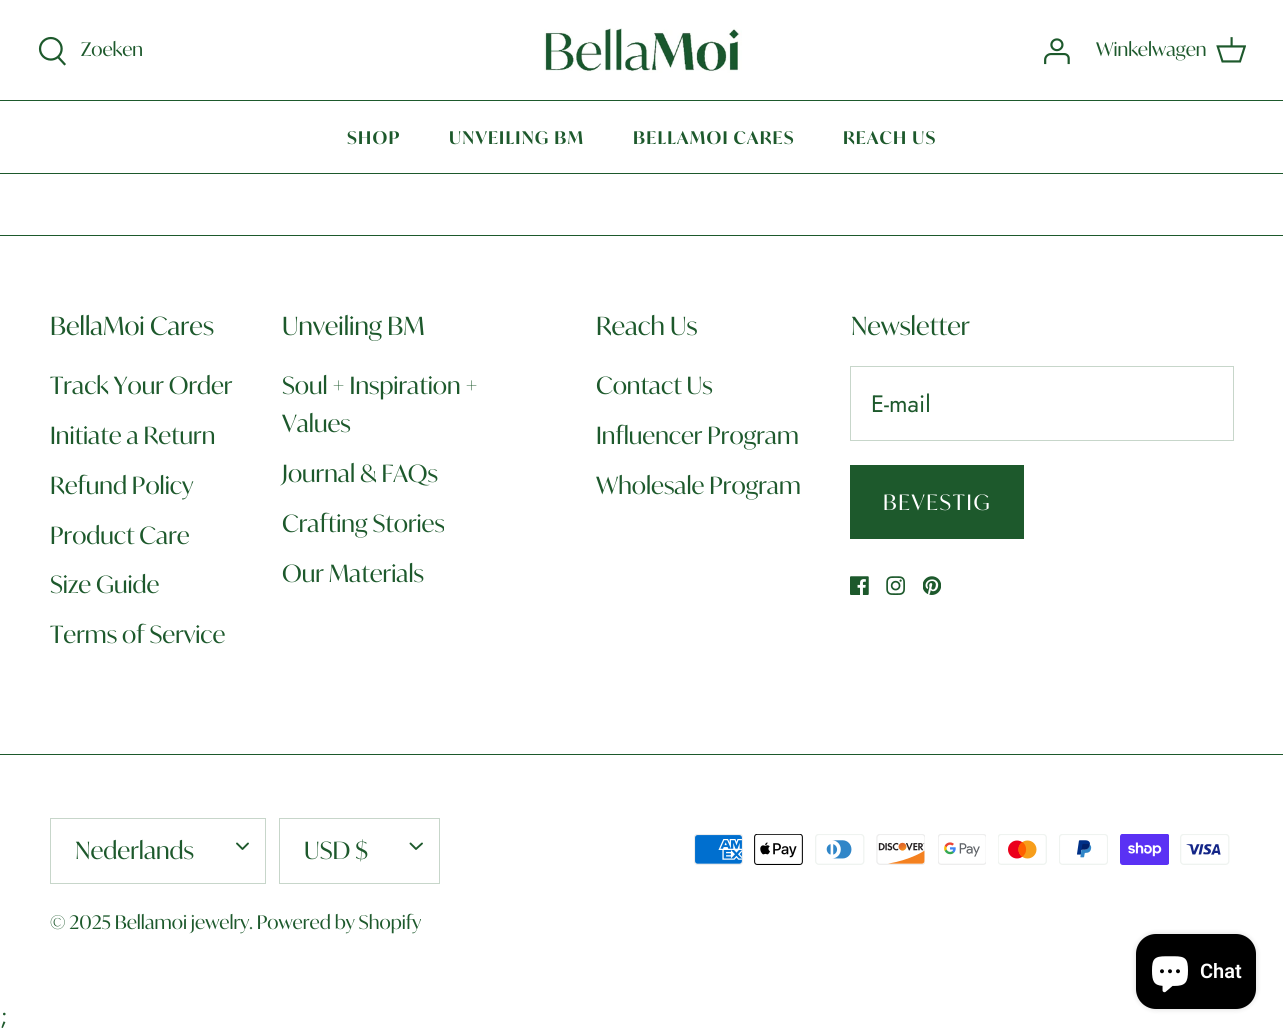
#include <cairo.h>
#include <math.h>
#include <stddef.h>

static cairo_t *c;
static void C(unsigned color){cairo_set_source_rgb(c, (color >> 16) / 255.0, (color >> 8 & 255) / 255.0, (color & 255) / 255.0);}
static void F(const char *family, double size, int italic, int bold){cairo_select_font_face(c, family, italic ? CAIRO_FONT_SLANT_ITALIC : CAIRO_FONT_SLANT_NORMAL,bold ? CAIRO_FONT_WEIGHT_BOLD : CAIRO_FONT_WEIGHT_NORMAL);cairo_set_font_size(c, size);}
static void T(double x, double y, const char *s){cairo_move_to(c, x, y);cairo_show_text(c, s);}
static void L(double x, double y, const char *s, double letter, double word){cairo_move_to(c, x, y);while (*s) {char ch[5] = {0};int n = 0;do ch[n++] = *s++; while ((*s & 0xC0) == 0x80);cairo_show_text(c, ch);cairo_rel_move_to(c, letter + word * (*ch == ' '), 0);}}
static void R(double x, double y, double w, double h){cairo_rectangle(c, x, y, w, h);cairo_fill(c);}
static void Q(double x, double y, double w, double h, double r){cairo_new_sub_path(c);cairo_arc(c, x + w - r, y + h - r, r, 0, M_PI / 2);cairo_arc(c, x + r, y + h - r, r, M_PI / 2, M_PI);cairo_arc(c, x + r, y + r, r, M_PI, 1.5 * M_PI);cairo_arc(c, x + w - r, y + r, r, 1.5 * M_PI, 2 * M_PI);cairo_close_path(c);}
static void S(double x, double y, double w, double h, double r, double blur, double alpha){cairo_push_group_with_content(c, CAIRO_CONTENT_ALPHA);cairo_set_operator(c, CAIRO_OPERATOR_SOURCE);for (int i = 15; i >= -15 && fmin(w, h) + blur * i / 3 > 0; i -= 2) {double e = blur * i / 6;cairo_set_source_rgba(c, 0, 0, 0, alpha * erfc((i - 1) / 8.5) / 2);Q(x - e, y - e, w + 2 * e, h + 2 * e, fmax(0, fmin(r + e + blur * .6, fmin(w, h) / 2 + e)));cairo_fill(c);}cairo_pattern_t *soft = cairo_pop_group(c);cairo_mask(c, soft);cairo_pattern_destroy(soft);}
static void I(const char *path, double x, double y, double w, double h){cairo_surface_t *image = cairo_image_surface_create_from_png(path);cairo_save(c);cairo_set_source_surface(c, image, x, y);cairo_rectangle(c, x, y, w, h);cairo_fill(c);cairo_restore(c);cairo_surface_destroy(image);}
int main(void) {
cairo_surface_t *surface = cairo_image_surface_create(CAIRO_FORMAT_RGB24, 1283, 1035);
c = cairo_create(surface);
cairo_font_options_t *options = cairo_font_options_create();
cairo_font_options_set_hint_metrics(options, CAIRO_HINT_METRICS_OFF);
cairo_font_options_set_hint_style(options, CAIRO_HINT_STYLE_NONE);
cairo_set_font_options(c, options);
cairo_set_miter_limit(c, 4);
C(0xffffff);
cairo_paint(c);
C(0x1d592c);
R(0,100,1283,1);
I("1.png",38,36,28,30);
F("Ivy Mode",18.75,0,0);
T(81,56,"Zoeken");
I("2.png",544,28,198,45);
I("3.png",1044,38,26,27);
T(1096,56,"Winkelwagen");
I("4.png",1216,37,30,26);
R(0,173,1283,1);
F("Ivy Mode SemiBold",17.5,0,0);
L(347,144,"SHOP",1.25,0);
L(449,144,"UNVEILING BM",1.25,0);
L(633,144,"BELLAMOI CARES",1.25,0);
L(843,144,"REACH US",1.25,0);
R(0,235,1283,1);
F("Ivy Mode",25,0,0);
T(50,335,"BellaMoi Cares");
F("Ivy Mode",23.75,0,0);
T(50,394,"Track Your Order");
T(50,444,"Initiate a Return");
T(50,494,"Refund Policy");
T(50,544,"Product Care");
T(50,593,"Size Guide");
T(50,643,"Terms of Service");
F("Ivy Mode",25,0,0);
T(282,335,"Unveiling BM");
F("Ivy Mode",23.75,0,0);
T(282,394,"Soul + Inspiration +");
T(282,432,"Values");
T(282,482,"Journal & FAQs");
T(282,532,"Crafting Stories");
T(282,582,"Our Materials");
F("Ivy Mode",25,0,0);
T(596,335,"Reach Us");
F("Ivy Mode",23.75,0,0);
T(596,394,"Contact Us");
T(596,444,"Influencer Program");
T(596,494,"Wholesale Program");
F("Ivy Mode",25,0,0);
T(851,335,"Newsletter");
cairo_rectangle(c,850.5,366.5,383,74);
C(0xc7d6ca);
cairo_set_line_width(c,1);
cairo_stroke(c);
F("Jost",23.75,0,0);
C(0x1d592c);
T(871,412,"E-mail");
R(850,465,174,74);
F("Ivy Mode",21.25,0,0);
C(0xffffff);
L(883,510,"BEVESTIG",1.75,0);
I("5.png",850,576,19,19);
I("6.png",886,576,19,19);
I("7.png",923,576,18,19);
C(0x1d592c);
R(0,754,1283,1);
cairo_rectangle(c,50.5,818.5,215,65);
C(0xc7d6ca);
cairo_stroke(c);
F("Ivy Mode",23.75,0,0);
C(0x1d592c);
T(75,859,"Nederlands");
cairo_new_path(c);
cairo_move_to(c,237,843.5);
cairo_line_to(c,242.5,849);
cairo_line_to(c,248,843.5);
cairo_set_line_width(c,1.9);
cairo_set_line_cap(c,CAIRO_LINE_CAP_ROUND);
cairo_set_line_join(c,CAIRO_LINE_JOIN_ROUND);
cairo_stroke(c);
cairo_rectangle(c,279.5,818.5,160,65);
C(0xc7d6ca);
cairo_set_line_width(c,1);
cairo_set_line_cap(c,CAIRO_LINE_CAP_BUTT);
cairo_set_line_join(c,CAIRO_LINE_JOIN_MITER);
cairo_stroke(c);
C(0x1d592c);
T(304,859,"USD $");
cairo_new_path(c);
cairo_move_to(c,410.5,843.5);
cairo_line_to(c,416,849);
cairo_line_to(c,422,843.5);
cairo_set_line_width(c,1.9);
cairo_set_line_cap(c,CAIRO_LINE_CAP_ROUND);
cairo_set_line_join(c,CAIRO_LINE_JOIN_ROUND);
cairo_stroke(c);
F("Ivy Mode",18.75,0,0);
T(50,929,"© 2025 Bellamoi jewelry. Powered by Shopify");
I("8.png",694,834,49,31);
I("9.png",754,834,49,31);
I("10.png",815,834,50,31);
I("11.png",876,834,49,31);
I("12.png",938,834,48,31);
I("13.png",998,834,49,31);
I("14.png",1059,834,49,31);
I("15.png",1120,834,49,31);
I("16.png",1180,834,50,31);
C(0x000000);
S(1136,934,120,75,20,3,.15);
C(0x000000);
Q(1136,934,120,75,20);
cairo_fill(c);
I("17.png",1152,956,36,37);
F("Roboto SemiBold",20,0,0);
C(0xffffff);
T(1200,978,"Chat");
F("Jost",23.75,0,0);
C(0x1d592c);
T(0,1024,";");
cairo_surface_write_to_png(surface, "o.png");
cairo_font_options_destroy(options);
cairo_destroy(c);
cairo_surface_destroy(surface);
return 0;
}
